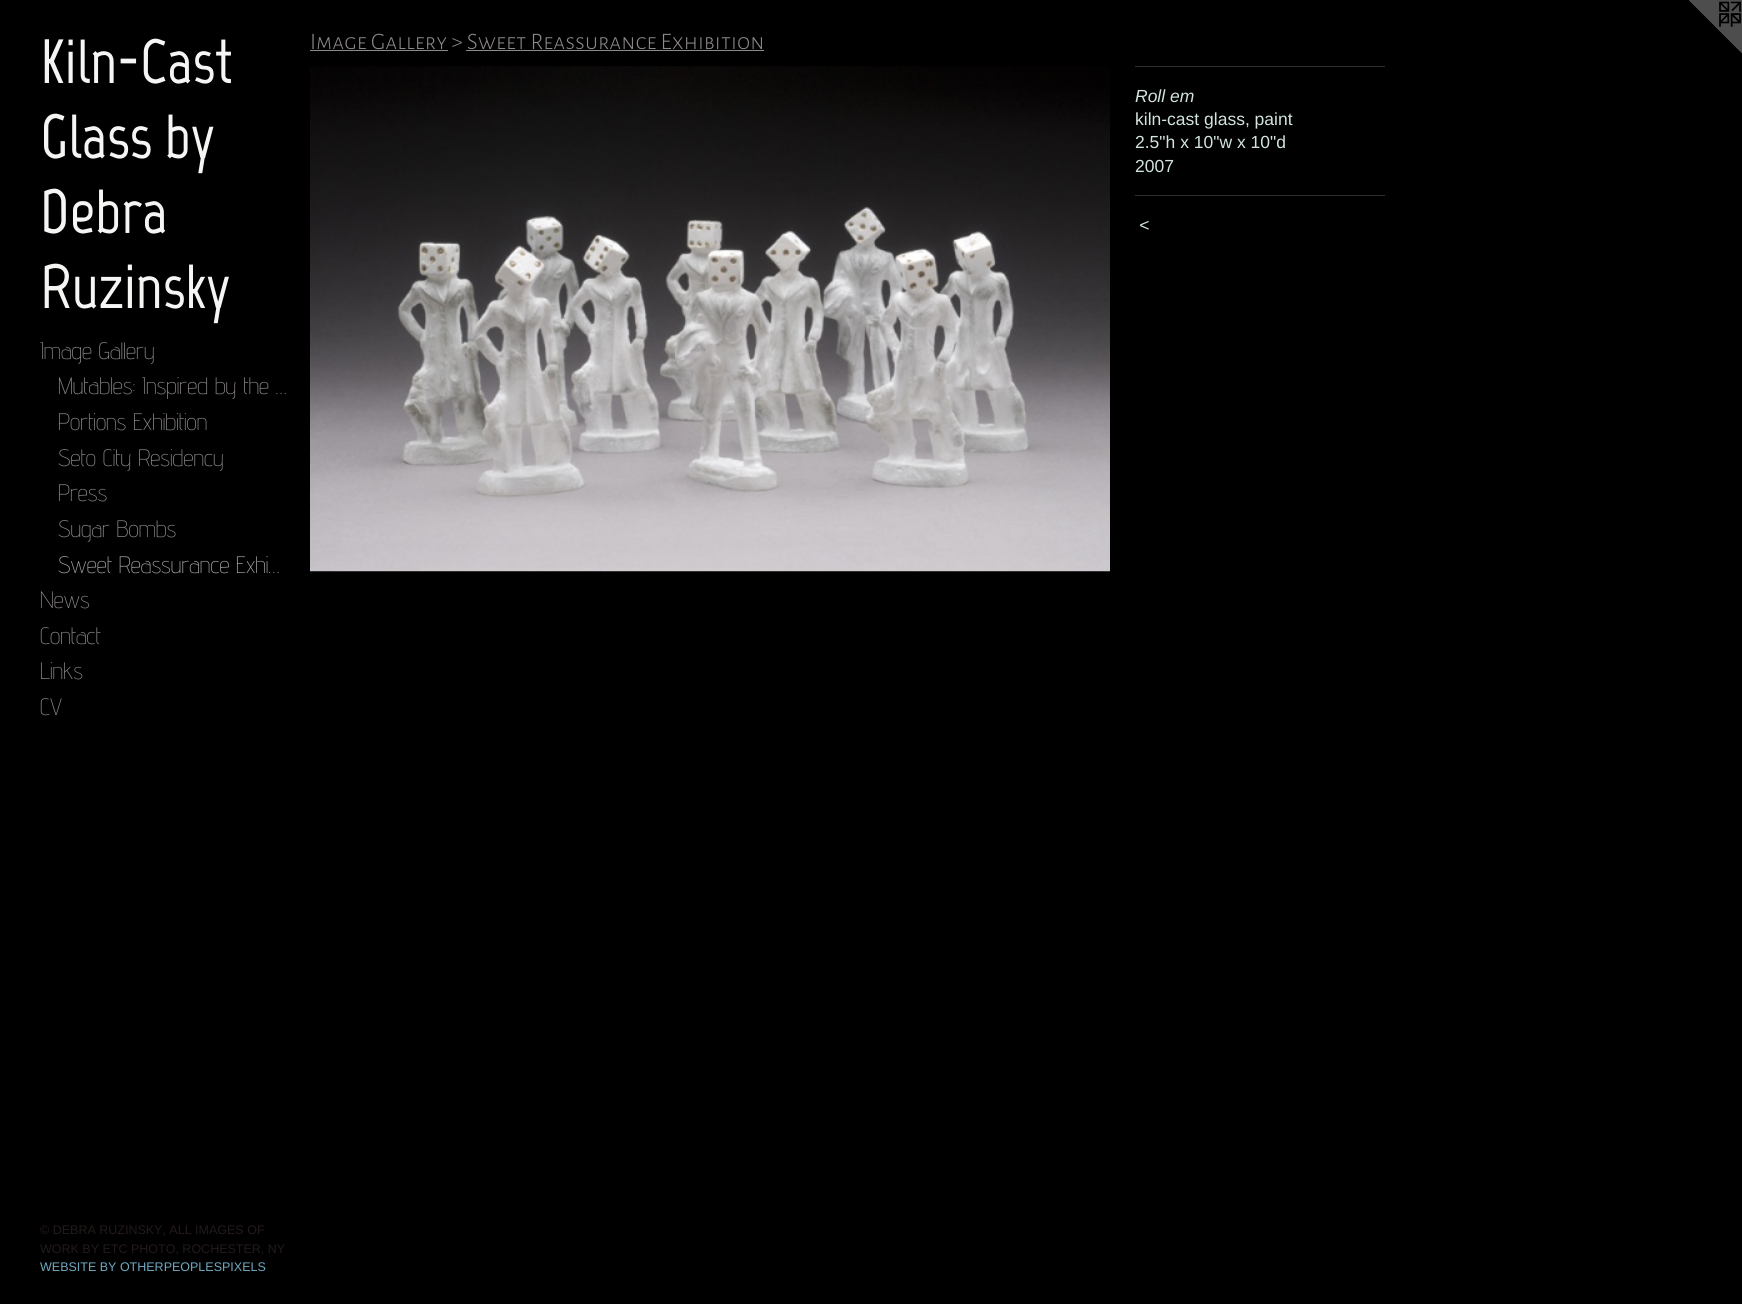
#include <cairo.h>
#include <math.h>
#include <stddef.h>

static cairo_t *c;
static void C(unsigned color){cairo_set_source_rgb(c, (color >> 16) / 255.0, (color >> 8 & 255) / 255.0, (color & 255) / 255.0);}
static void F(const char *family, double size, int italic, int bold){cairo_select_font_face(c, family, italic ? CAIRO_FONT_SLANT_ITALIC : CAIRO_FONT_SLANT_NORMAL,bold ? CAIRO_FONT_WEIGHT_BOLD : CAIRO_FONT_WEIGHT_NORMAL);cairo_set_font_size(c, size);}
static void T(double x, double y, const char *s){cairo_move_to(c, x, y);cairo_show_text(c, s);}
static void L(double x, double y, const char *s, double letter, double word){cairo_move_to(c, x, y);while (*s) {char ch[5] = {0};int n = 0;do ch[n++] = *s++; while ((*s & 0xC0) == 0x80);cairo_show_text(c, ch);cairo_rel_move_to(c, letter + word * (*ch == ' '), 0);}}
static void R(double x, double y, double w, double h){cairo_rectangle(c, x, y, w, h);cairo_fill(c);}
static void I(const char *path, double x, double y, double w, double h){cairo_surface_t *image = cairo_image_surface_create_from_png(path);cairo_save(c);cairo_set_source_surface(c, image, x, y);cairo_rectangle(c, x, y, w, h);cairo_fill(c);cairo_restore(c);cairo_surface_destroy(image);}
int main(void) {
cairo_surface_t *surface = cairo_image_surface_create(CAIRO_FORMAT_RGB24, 1742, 1304);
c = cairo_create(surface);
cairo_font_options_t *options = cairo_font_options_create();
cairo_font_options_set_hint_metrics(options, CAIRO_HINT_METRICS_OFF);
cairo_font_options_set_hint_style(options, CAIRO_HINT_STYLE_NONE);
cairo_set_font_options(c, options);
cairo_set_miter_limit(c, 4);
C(0x000000);
cairo_paint(c);
F("Marvel",62.5,0,1);
C(0xf5f5f4);
T(40,83,"Kiln-Cast");
T(40,158,"Glass by");
T(40,233,"Debra");
T(40,308,"Ruzinsky");
F("Advent Pro ExtraLight",23.75,0,0);
C(0x8f8a8a);
T(40,359,"Image Gallery");
T(58,394,"Mutables: Inspired by the …");
T(58,430,"Portions Exhibition");
T(58,466,"Seto City Residency");
T(58,501,"Press");
T(58,537,"Sugar Bombs");
C(0xa8a4a4);
T(58,573,"Sweet Reassurance Exhi…");
C(0x8f8a8a);
T(40,608,"News");
T(40,644,"Contact");
T(40,679,"Links");
T(40,715,"CV");
F("Liberation Sans",12.5,0,0);
C(0x231a1a);
T(40,1234,"© DEBRA RUZINSKY, ALL IMAGES OF");
T(40,1253,"WORK BY ETC PHOTO, ROCHESTER, NY");
C(0x70a8c0);
T(40,1271,"WEBSITE BY OTHERPEOPLESPIXELS");
I("1.png",1689,0,53,54);
F("Alegreya Sans SC Light",23.75,0,0);
C(0x8f8a8a);
T(310,49,"Image Gallery > Sweet Reassurance Exhibition");
R(310,50,138,1);
R(466,50,298,1);
I("2.png",310,66,800,506);
C(0x2a2e2d);
R(1135,66,250,1);
F("Liberation Sans",17.5,1,0);
C(0xd2e4e0);
T(1135,102,"Roll em");
F("Liberation Sans",17.5,0,0);
T(1135,125,"kiln-cast glass, paint");
T(1135,148,"2.5\"h x 10\"w x 10\"d");
T(1135,172,"2007");
C(0x2a2e2d);
R(1135,195,250,1);
F("Liberation Sans",17.5,1,0);
C(0xd2e4e0);
L(1139,231,"<",1,0);
cairo_surface_write_to_png(surface, "o.png");
cairo_font_options_destroy(options);
cairo_destroy(c);
cairo_surface_destroy(surface);
return 0;
}
